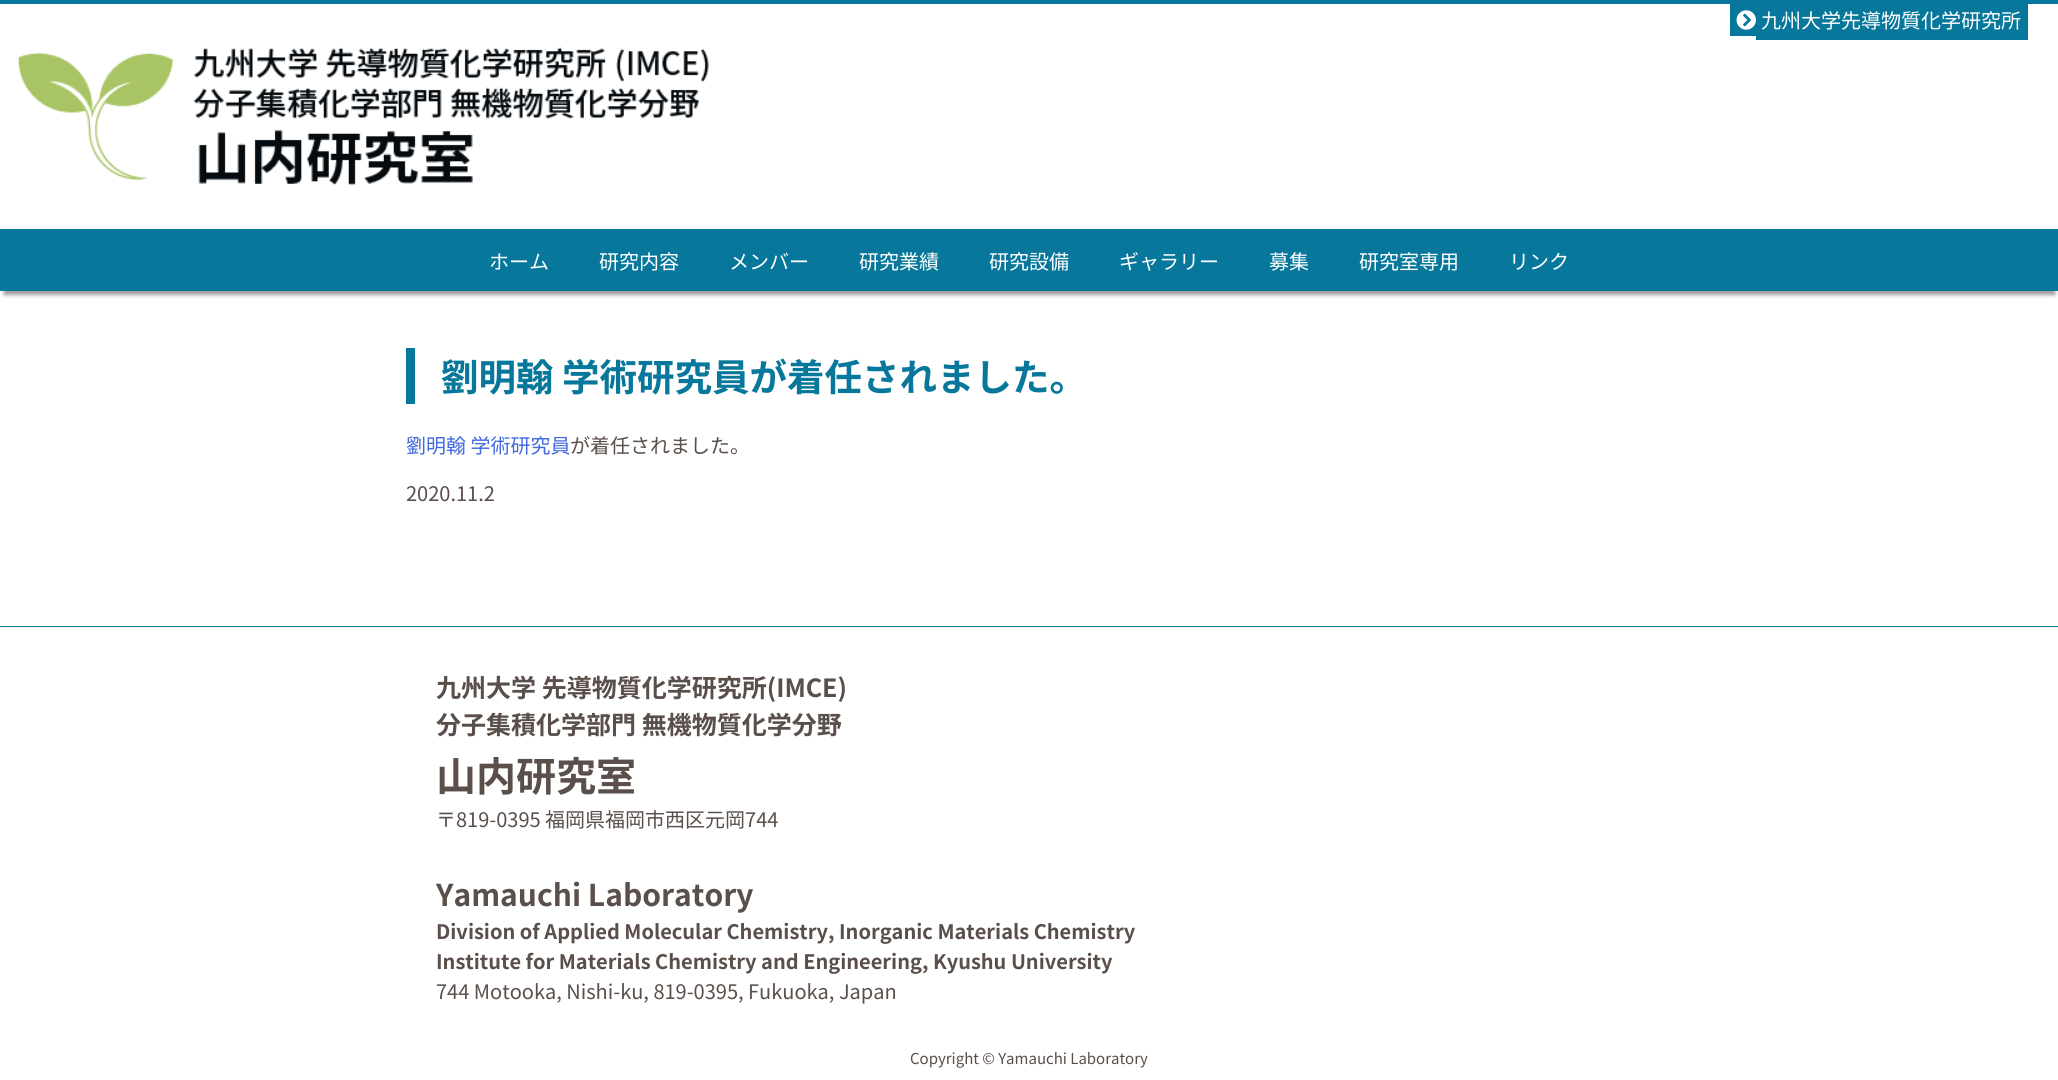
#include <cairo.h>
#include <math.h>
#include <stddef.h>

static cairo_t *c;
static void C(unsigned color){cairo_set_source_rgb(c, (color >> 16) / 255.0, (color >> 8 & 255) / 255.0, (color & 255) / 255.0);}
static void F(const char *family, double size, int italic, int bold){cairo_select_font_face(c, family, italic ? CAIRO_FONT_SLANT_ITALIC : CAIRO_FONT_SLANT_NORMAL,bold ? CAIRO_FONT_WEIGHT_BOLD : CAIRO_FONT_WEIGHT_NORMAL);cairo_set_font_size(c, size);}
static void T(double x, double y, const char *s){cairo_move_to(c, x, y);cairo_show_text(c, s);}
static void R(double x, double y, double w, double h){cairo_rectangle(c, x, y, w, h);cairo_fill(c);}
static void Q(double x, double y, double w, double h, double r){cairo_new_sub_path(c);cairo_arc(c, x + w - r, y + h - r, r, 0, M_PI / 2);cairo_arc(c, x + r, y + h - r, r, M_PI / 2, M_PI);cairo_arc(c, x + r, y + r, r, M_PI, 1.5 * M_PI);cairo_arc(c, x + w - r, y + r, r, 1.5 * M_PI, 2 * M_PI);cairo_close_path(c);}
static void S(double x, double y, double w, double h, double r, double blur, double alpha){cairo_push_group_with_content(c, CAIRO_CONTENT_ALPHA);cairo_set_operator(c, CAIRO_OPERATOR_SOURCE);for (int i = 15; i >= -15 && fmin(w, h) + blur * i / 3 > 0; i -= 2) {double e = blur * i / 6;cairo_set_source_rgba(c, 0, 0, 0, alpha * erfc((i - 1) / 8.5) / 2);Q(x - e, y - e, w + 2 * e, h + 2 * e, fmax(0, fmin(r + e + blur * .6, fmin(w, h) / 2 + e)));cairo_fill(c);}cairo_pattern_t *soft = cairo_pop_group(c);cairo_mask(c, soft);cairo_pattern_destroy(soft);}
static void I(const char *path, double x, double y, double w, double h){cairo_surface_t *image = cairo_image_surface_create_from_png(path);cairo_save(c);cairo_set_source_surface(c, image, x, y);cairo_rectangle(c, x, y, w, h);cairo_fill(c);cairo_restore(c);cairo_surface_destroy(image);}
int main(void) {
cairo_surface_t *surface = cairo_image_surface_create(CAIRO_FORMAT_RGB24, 2058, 1080);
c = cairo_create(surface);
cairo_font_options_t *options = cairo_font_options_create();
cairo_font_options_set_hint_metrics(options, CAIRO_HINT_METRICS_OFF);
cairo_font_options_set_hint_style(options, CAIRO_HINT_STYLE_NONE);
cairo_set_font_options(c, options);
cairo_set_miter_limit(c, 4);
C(0xffffff);
cairo_paint(c);
C(0x07789b);
R(0,0,2058,4);
R(1730,4,26,32);
R(1756,4,272,36);
I("1.png",1736,10,20,20);
F("Noto Sans JP",20,0,0);
C(0xffffff);
T(1761,28,"九州大学先導物質化学研究所");
I("2.png",18,52,156,128);
I("3.png",193,47,516,139);
C(0x0a0a0a);
S(4,240,2051,55,0,2,.4);
C(0x07789b);
R(0,229,2058,62);
C(0xffffff);
T(489,269,"ホーム");
T(599,269,"研究内容");
T(729,269,"メンバー");
T(859,269,"研究業績");
T(989,269,"研究設備");
T(1119,269,"ギャラリー");
T(1269,269,"募集");
T(1359,269,"研究室専用");
T(1509,269,"リンク");
C(0x07789b);
R(406,348,9,56);
F("Noto Sans JP",37.5,0,1);
T(441,391,"劉明翰 学術研究員が着任されました。");
F("Noto Sans JP",20,0,0);
C(0x4169e1);
T(406,453,"劉明翰 学術研究員");
C(0x5a4f4a);
T(570,453,"が着任されました。");
T(406,501,"2020.11.2");
C(0x07789b);
R(0,626,2058,1);
F("Noto Sans JP",25,0,1);
C(0x5a4f4a);
T(436,697,"九州大学 先導物質化学研究所(IMCE)");
T(436,734,"分子集積化学部門 無機物質化学分野");
F("Noto Sans JP",40,0,1);
T(436,791,"山内研究室");
F("Noto Sans JP",20,0,0);
T(436,827,"〒819-0395 福岡県福岡市西区元岡744");
F("Noto Sans JP",30,0,1);
T(436,906,"Yamauchi Laboratory");
F("Noto Sans JP",20,0,1);
T(436,939,"Division of Applied Molecular Chemistry, Inorganic Materials Chemistry");
T(436,969,"Institute for Materials Chemistry and Engineering, Kyushu University");
F("Noto Sans JP",20,0,0);
T(436,999,"744 Motooka, Nishi-ku, 819-0395, Fukuoka, Japan");
F("Noto Sans JP",15,0,0);
T(910,1064,"Copyright © Yamauchi Laboratory");
cairo_surface_write_to_png(surface, "o.png");
cairo_font_options_destroy(options);
cairo_destroy(c);
cairo_surface_destroy(surface);
return 0;
}
